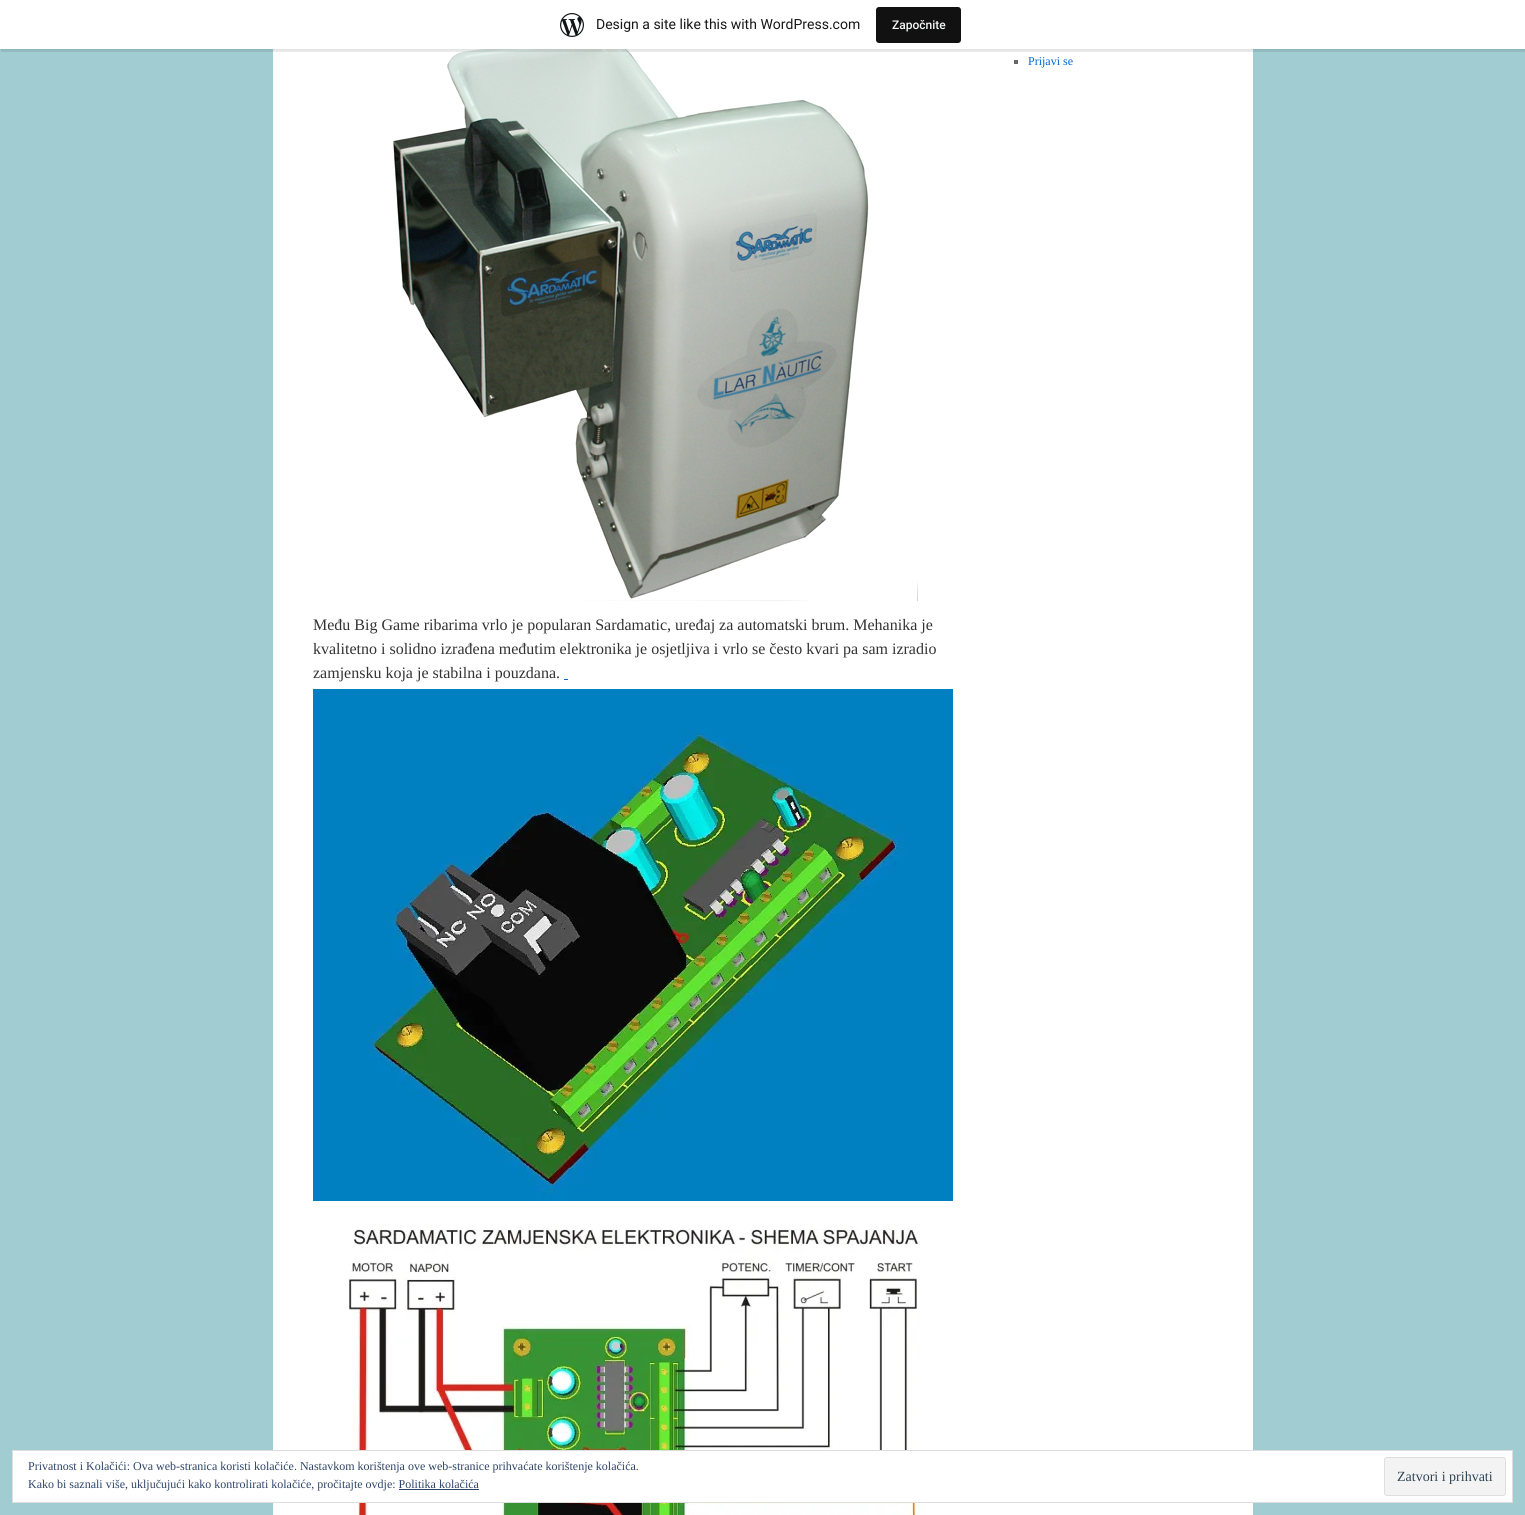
#include <cairo.h>
#include <math.h>
#include <stddef.h>

static cairo_t *c;
static void C(unsigned color){cairo_set_source_rgb(c, (color >> 16) / 255.0, (color >> 8 & 255) / 255.0, (color & 255) / 255.0);}
static void F(const char *family, double size, int italic, int bold){cairo_select_font_face(c, family, italic ? CAIRO_FONT_SLANT_ITALIC : CAIRO_FONT_SLANT_NORMAL,bold ? CAIRO_FONT_WEIGHT_BOLD : CAIRO_FONT_WEIGHT_NORMAL);cairo_set_font_size(c, size);}
static void T(double x, double y, const char *s){cairo_move_to(c, x, y);cairo_show_text(c, s);}
static void R(double x, double y, double w, double h){cairo_rectangle(c, x, y, w, h);cairo_fill(c);}
static void Q(double x, double y, double w, double h, double r){cairo_new_sub_path(c);cairo_arc(c, x + w - r, y + h - r, r, 0, M_PI / 2);cairo_arc(c, x + r, y + h - r, r, M_PI / 2, M_PI);cairo_arc(c, x + r, y + r, r, M_PI, 1.5 * M_PI);cairo_arc(c, x + w - r, y + r, r, 1.5 * M_PI, 2 * M_PI);cairo_close_path(c);}
static void S(double x, double y, double w, double h, double r, double blur, double alpha){cairo_push_group_with_content(c, CAIRO_CONTENT_ALPHA);cairo_set_operator(c, CAIRO_OPERATOR_SOURCE);for (int i = 15; i >= -15 && fmin(w, h) + blur * i / 3 > 0; i -= 2) {double e = blur * i / 6;cairo_set_source_rgba(c, 0, 0, 0, alpha * erfc((i - 1) / 8.5) / 2);Q(x - e, y - e, w + 2 * e, h + 2 * e, fmax(0, fmin(r + e + blur * .6, fmin(w, h) / 2 + e)));cairo_fill(c);}cairo_pattern_t *soft = cairo_pop_group(c);cairo_mask(c, soft);cairo_pattern_destroy(soft);}
static void I(const char *path, double x, double y, double w, double h){cairo_surface_t *image = cairo_image_surface_create_from_png(path);cairo_save(c);cairo_set_source_surface(c, image, x, y);cairo_rectangle(c, x, y, w, h);cairo_fill(c);cairo_restore(c);cairo_surface_destroy(image);}
int main(void) {
cairo_surface_t *surface = cairo_image_surface_create(CAIRO_FORMAT_RGB24, 1525, 1515);
c = cairo_create(surface);
cairo_font_options_t *options = cairo_font_options_create();
cairo_font_options_set_hint_metrics(options, CAIRO_HINT_METRICS_OFF);
cairo_font_options_set_hint_style(options, CAIRO_HINT_STYLE_NONE);
cairo_set_font_options(c, options);
cairo_set_miter_limit(c, 4);
C(0xa1ccd1);
cairo_paint(c);
C(0xffffff);
R(273,49,980,1466);
I("2.png",347,49,571,552);
C(0x000000);
S(0,1,1525,49,0,1,.05);
cairo_set_source_rgba(c,0,0,0,0.08);
cairo_new_path(c);
cairo_move_to(c,1,49);
cairo_line_to(c,1,52);
cairo_line_to(c,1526,52);
cairo_line_to(c,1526,3);
cairo_line_to(c,1525,3);
cairo_line_to(c,1525,49);
cairo_close_path(c);
cairo_fill(c);
C(0xffffff);
R(0,0,1525,49);
I("1.png",560,13,24,24);
F("Roboto",14,0,0);
C(0x171717);
T(596,29,"Design a site like this with WordPress.com");
C(0x111111);
Q(876,7,85,36,3);
cairo_fill(c);
F("Roboto Medium",12,0,0);
C(0xf6f7f7);
T(892,29,"Započnite");
C(0x666666);
R(1014,60,4,4);
F("Liberation Serif",12,0,0);
C(0x0066cc);
T(1028,65,"Prijavi se");
F("Liberation Serif",16,0,0);
C(0x333333);
T(313,630,"Među Big Game ribarima vrlo je popularan Sardamatic, uređaj za automatski brum. Mehanika je");
T(313,654,"kvalitetno i solidno izrađena međutim elektronika je osjetljiva i vrlo se često kvari pa sam izradio");
T(313,678,"zamjensku koja je stabilna i pouzdana.");
C(0x0066cc);
R(564,679,4,1);
I("3.png",349,1229,572,286);
I("4.png",313,689,640,512);
C(0xffffff);
cairo_rectangle(c,12.5,1450.5,1500,52);
cairo_fill_preserve(c);
C(0xdedede);
cairo_set_line_width(c,1);
cairo_stroke(c);
F("Liberation Serif",12,0,0);
C(0x2e4467);
T(28,1470,"Privatnost i Kolačići: Ova web-stranica koristi kolačiće. Nastavkom korištenja ove web-stranice prihvaćate korištenje kolačića.");
T(28,1488,"Kako bi saznali više, uključujući kako kontrolirati kolačiće, pročitajte ovdje: Politika kolačića");
C(0xf3f3f3);
Q(1384.5,1457.5,121,38,2.5);
cairo_fill_preserve(c);
C(0xdedede);
cairo_stroke(c);
F("Liberation Serif",14,0,0);
C(0x2e4453);
T(1397,1481,"Zatvori i prihvati");
C(0x2e4467);
R(399,1489,80,1);
cairo_surface_write_to_png(surface, "o.png");
cairo_font_options_destroy(options);
cairo_destroy(c);
cairo_surface_destroy(surface);
return 0;
}
